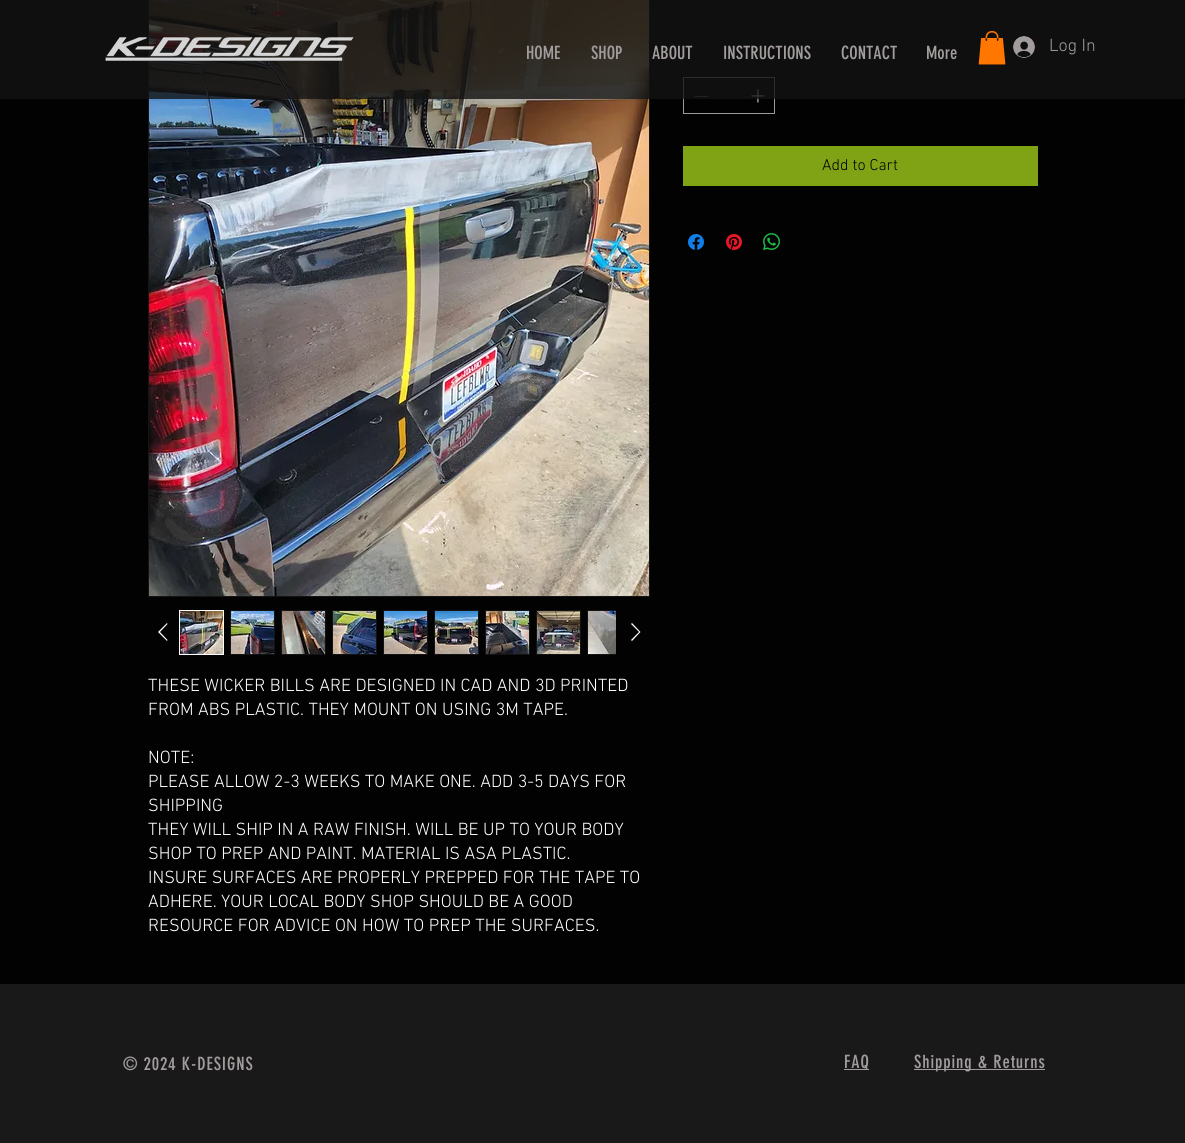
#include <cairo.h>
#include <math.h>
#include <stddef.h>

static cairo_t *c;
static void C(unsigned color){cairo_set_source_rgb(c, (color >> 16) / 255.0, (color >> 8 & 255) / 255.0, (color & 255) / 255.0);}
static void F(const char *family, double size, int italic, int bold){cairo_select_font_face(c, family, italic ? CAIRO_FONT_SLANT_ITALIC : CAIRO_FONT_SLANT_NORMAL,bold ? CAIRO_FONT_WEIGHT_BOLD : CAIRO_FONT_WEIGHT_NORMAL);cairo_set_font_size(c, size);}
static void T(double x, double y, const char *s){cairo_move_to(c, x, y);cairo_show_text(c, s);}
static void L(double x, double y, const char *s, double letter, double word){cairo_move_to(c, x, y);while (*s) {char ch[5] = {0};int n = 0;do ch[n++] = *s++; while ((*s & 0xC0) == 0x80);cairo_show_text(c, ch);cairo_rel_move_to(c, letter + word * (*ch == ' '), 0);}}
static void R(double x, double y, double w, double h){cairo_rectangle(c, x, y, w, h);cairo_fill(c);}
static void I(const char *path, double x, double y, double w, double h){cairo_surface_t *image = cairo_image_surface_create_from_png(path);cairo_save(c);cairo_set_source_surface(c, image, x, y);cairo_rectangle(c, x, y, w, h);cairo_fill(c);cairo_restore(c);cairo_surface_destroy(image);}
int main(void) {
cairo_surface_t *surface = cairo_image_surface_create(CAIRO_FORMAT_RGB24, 1185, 1143);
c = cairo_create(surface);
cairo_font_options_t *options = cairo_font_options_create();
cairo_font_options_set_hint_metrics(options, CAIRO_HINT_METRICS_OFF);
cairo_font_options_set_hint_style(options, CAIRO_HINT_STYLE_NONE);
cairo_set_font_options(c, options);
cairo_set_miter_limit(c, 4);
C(0x020202);
cairo_paint(c);
cairo_rectangle(c,683.5,77.5,91,36);
C(0x9a9a9a);
cairo_set_line_width(c,1);
cairo_stroke(c);
C(0x656565);
R(695,96,13,1);
I("4.png",751,89,14,14);
cairo_rectangle(c,148.5,-.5,501,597);
C(0x141414);
cairo_stroke(c);
I("8.png",149,0,500,596);
cairo_set_source_rgba(c,0.078,0.078,0.078,0.8);
R(0,0,1185,99);
I("1.png",105,37,249,24);
F("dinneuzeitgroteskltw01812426",18,0,0);
C(0xa29c9c);
T(526,59,"HOME");
T(591,59,"SHOP");
T(652,59,"ABOUT");
T(723,59,"INSTRUCTIONS");
T(841,59,"CONTACT");
T(926,59,"More");
I("2.png",978,31,28,34);
I("3.png",1013,36,22,22);
F("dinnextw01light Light",18,0,0);
T(1049,51,"Log In");
C(0x80a315);
R(683,146,355,40);
F("dinnextw01light Light",16,0,0);
C(0x020202);
T(822,170,"Add to Cart");
I("5.png",688,234,16,16);
I("6.png",726,234,16,16);
I("7.png",763,233,17,17);
C(0xffffff);
cairo_set_fill_rule(c,CAIRO_FILL_RULE_EVEN_ODD);
cairo_new_path(c);
cairo_move_to(c,167,623);
cairo_line_to(c,167.5,624);
cairo_line_to(c,160,632);
cairo_line_to(c,167.5,640);
cairo_line_to(c,167,641);
cairo_line_to(c,158,632);
cairo_close_path(c);
cairo_fill(c);
cairo_rectangle(c,179.5,610.5,44,44);
cairo_stroke(c);
I("9.png",180,611,43,43);
cairo_rectangle(c,230.5,610.5,44,44);
C(0x141414);
cairo_stroke(c);
I("10.png",231,611,43,43);
cairo_rectangle(c,281.5,610.5,44,44);
cairo_stroke(c);
I("11.png",282,611,43,43);
cairo_rectangle(c,332.5,610.5,44,44);
cairo_stroke(c);
I("12.png",333,611,43,43);
cairo_rectangle(c,383.5,610.5,44,44);
cairo_stroke(c);
I("13.png",384,611,43,43);
cairo_rectangle(c,434.5,610.5,44,44);
cairo_stroke(c);
I("14.png",435,611,43,43);
cairo_rectangle(c,485.5,610.5,44,44);
cairo_stroke(c);
I("15.png",486,611,43,43);
cairo_rectangle(c,536.5,610.5,44,44);
cairo_stroke(c);
I("16.png",537,611,43,43);
C(0xffffff);
cairo_new_path(c);
cairo_move_to(c,632,623);
cairo_line_to(c,640.5,632);
cairo_line_to(c,632,641);
cairo_line_to(c,631,640);
cairo_line_to(c,639,632);
cairo_line_to(c,631,624);
cairo_close_path(c);
cairo_fill(c);
cairo_save(c);
cairo_set_fill_rule(c,CAIRO_FILL_RULE_WINDING);
cairo_rectangle(c,175,606,441,53);
cairo_clip(c);
cairo_rectangle(c,587.5,610.5,44,44);
C(0x141414);
cairo_stroke(c);
cairo_restore(c);
I("17.png",588,611,28,43);
F("dinnextw01light Light",18,0,0);
T(148,691,"THESE WICKER BILLS ARE DESIGNED IN CAD AND 3D PRINTED");
T(148,715,"FROM ABS PLASTIC. THEY MOUNT ON USING 3M TAPE.");
T(148,763,"NOTE:");
T(148,787,"PLEASE ALLOW 2-3 WEEKS TO MAKE ONE. ADD 3-5 DAYS FOR");
T(148,811,"SHIPPING");
T(148,835,"THEY WILL SHIP IN A RAW FINISH. WILL BE UP TO YOUR BODY");
T(148,859,"SHOP TO PREP AND PAINT. MATERIAL IS ASA PLASTIC.");
T(148,883,"INSURE SURFACES ARE PROPERLY PREPPED FOR THE TAPE TO");
T(148,907,"ADHERE. YOUR LOCAL BODY SHOP SHOULD BE A GOOD");
T(148,931,"RESOURCE FOR ADVICE ON HOW TO PREP THE SURFACES.");
C(0x1a1919);
R(0,984,1185,159);
F("dinneuzeitgroteskltw01812426",18,0,0);
C(0xa29c9c);
L(123,1070,"© 2024 K-DESIGNS",.9,0);
R(844,1069,25,1);
L(844,1068,"FAQ",.9,0);
R(914,1069,131,1);
L(914,1068,"Shipping & Returns",.9,0);
cairo_surface_write_to_png(surface, "o.png");
cairo_font_options_destroy(options);
cairo_destroy(c);
cairo_surface_destroy(surface);
return 0;
}
